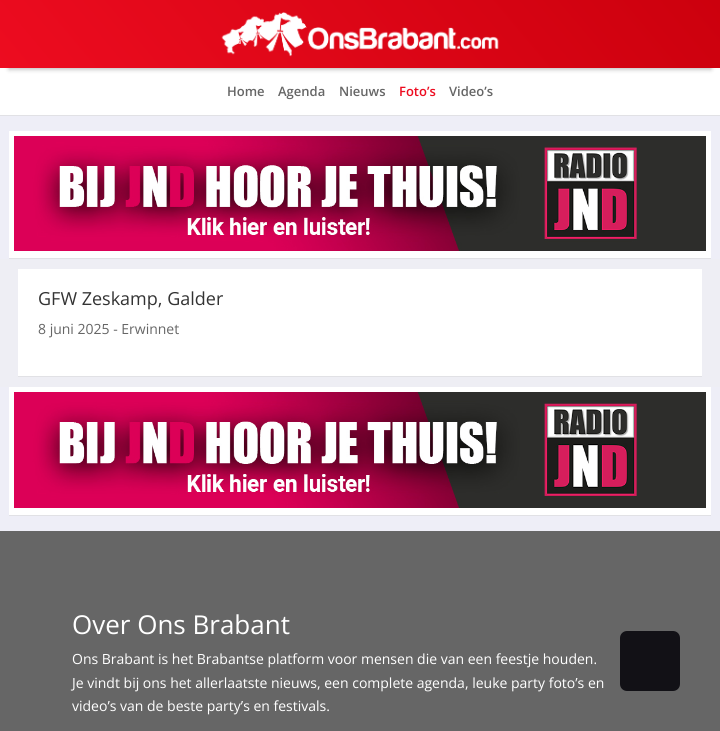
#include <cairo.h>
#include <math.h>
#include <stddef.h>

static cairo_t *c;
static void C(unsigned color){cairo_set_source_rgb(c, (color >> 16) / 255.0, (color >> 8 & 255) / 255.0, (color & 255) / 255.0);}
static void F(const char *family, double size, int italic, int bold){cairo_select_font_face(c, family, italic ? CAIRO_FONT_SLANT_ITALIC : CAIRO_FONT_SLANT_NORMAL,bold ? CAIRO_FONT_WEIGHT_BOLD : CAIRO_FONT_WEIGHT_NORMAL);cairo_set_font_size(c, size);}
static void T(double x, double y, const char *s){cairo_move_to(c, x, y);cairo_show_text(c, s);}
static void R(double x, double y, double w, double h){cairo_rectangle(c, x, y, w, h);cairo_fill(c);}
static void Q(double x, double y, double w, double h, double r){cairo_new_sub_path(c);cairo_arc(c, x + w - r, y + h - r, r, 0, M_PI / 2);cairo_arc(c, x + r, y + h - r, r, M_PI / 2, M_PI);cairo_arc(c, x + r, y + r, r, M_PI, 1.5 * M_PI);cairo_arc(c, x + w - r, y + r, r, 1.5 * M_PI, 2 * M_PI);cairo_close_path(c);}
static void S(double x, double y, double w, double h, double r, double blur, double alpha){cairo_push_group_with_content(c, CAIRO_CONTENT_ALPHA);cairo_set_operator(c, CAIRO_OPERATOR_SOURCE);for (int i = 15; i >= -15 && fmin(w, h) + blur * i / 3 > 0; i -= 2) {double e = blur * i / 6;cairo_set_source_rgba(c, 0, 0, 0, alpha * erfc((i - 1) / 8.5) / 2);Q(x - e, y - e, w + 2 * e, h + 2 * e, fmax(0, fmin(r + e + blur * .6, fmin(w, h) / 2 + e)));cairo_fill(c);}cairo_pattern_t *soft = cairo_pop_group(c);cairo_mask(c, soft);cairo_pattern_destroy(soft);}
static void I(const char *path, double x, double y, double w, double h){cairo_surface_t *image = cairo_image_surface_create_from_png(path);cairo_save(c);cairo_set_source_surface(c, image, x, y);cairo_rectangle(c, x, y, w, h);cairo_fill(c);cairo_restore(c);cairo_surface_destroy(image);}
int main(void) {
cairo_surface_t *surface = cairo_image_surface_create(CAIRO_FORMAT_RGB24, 720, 731);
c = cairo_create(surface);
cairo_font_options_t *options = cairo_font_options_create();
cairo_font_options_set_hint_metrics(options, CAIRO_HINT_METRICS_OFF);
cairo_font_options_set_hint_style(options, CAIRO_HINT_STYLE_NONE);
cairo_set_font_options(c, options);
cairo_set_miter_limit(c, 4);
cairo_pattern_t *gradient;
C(0xeeeef7);
cairo_paint(c);
C(0xffffff);
R(0,68,720,47);
C(0x000000);
S(9,19,702,50,0,2.5,.3);
gradient = cairo_pattern_create_linear(132,225,588,-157);
cairo_pattern_add_color_stop_rgba(gradient,0,0.929,0.047,0.125,1);
cairo_pattern_add_color_stop_rgba(gradient,1,0.8,0,0.051,1);
cairo_set_source(c,gradient);
cairo_pattern_destroy(gradient);
R(0,0,720,68);
I("1.png",221,12,278,45);
C(0xe1e1e5);
R(0,115,720,1);
F("Open Sans SemiBold",13,0,0);
C(0x666666);
T(227,96,"Home");
T(278,96,"Agenda");
T(339,96,"Nieuws");
C(0xed0c20);
T(399,96,"Foto’s");
C(0x666666);
T(449,96,"Video’s");
C(0xffffff);
R(9,131,702,127);
C(0xe1e1e5);
R(9,258,702,1);
I("2.png",14,136,692,115);
C(0xeeeef4);
R(0,259,720,128);
C(0xffffff);
R(18,269,684,107);
C(0xe1e1e5);
R(18,376,684,1);
F("Open Sans",18,0,0);
C(0x333333);
T(38,305,"GFW Zeskamp, Galder");
F("Open Sans",14,0,0);
C(0x666666);
T(38,334,"8 juni 2025 - Erwinnet");
C(0xffffff);
R(9,387,702,128);
C(0xe1e1e5);
R(9,515,702,1);
I("3.png",14,392,692,116);
C(0x666666);
R(0,531,720,200);
F("Open Sans",26,0,0);
C(0xffffff);
T(72,634,"Over Ons Brabant");
F("Open Sans",14,0,0);
T(72,664,"Ons Brabant is het Brabantse platform voor mensen die van een feestje houden.");
T(72,688,"Je vindt bij ons het allerlaatste nieuws, een complete agenda, leuke party foto’s en");
T(72,711,"video’s van de beste party’s en festivals.");
C(0x121116);
Q(620,631,60,60,7);
cairo_fill(c);
cairo_surface_write_to_png(surface, "o.png");
cairo_font_options_destroy(options);
cairo_destroy(c);
cairo_surface_destroy(surface);
return 0;
}
